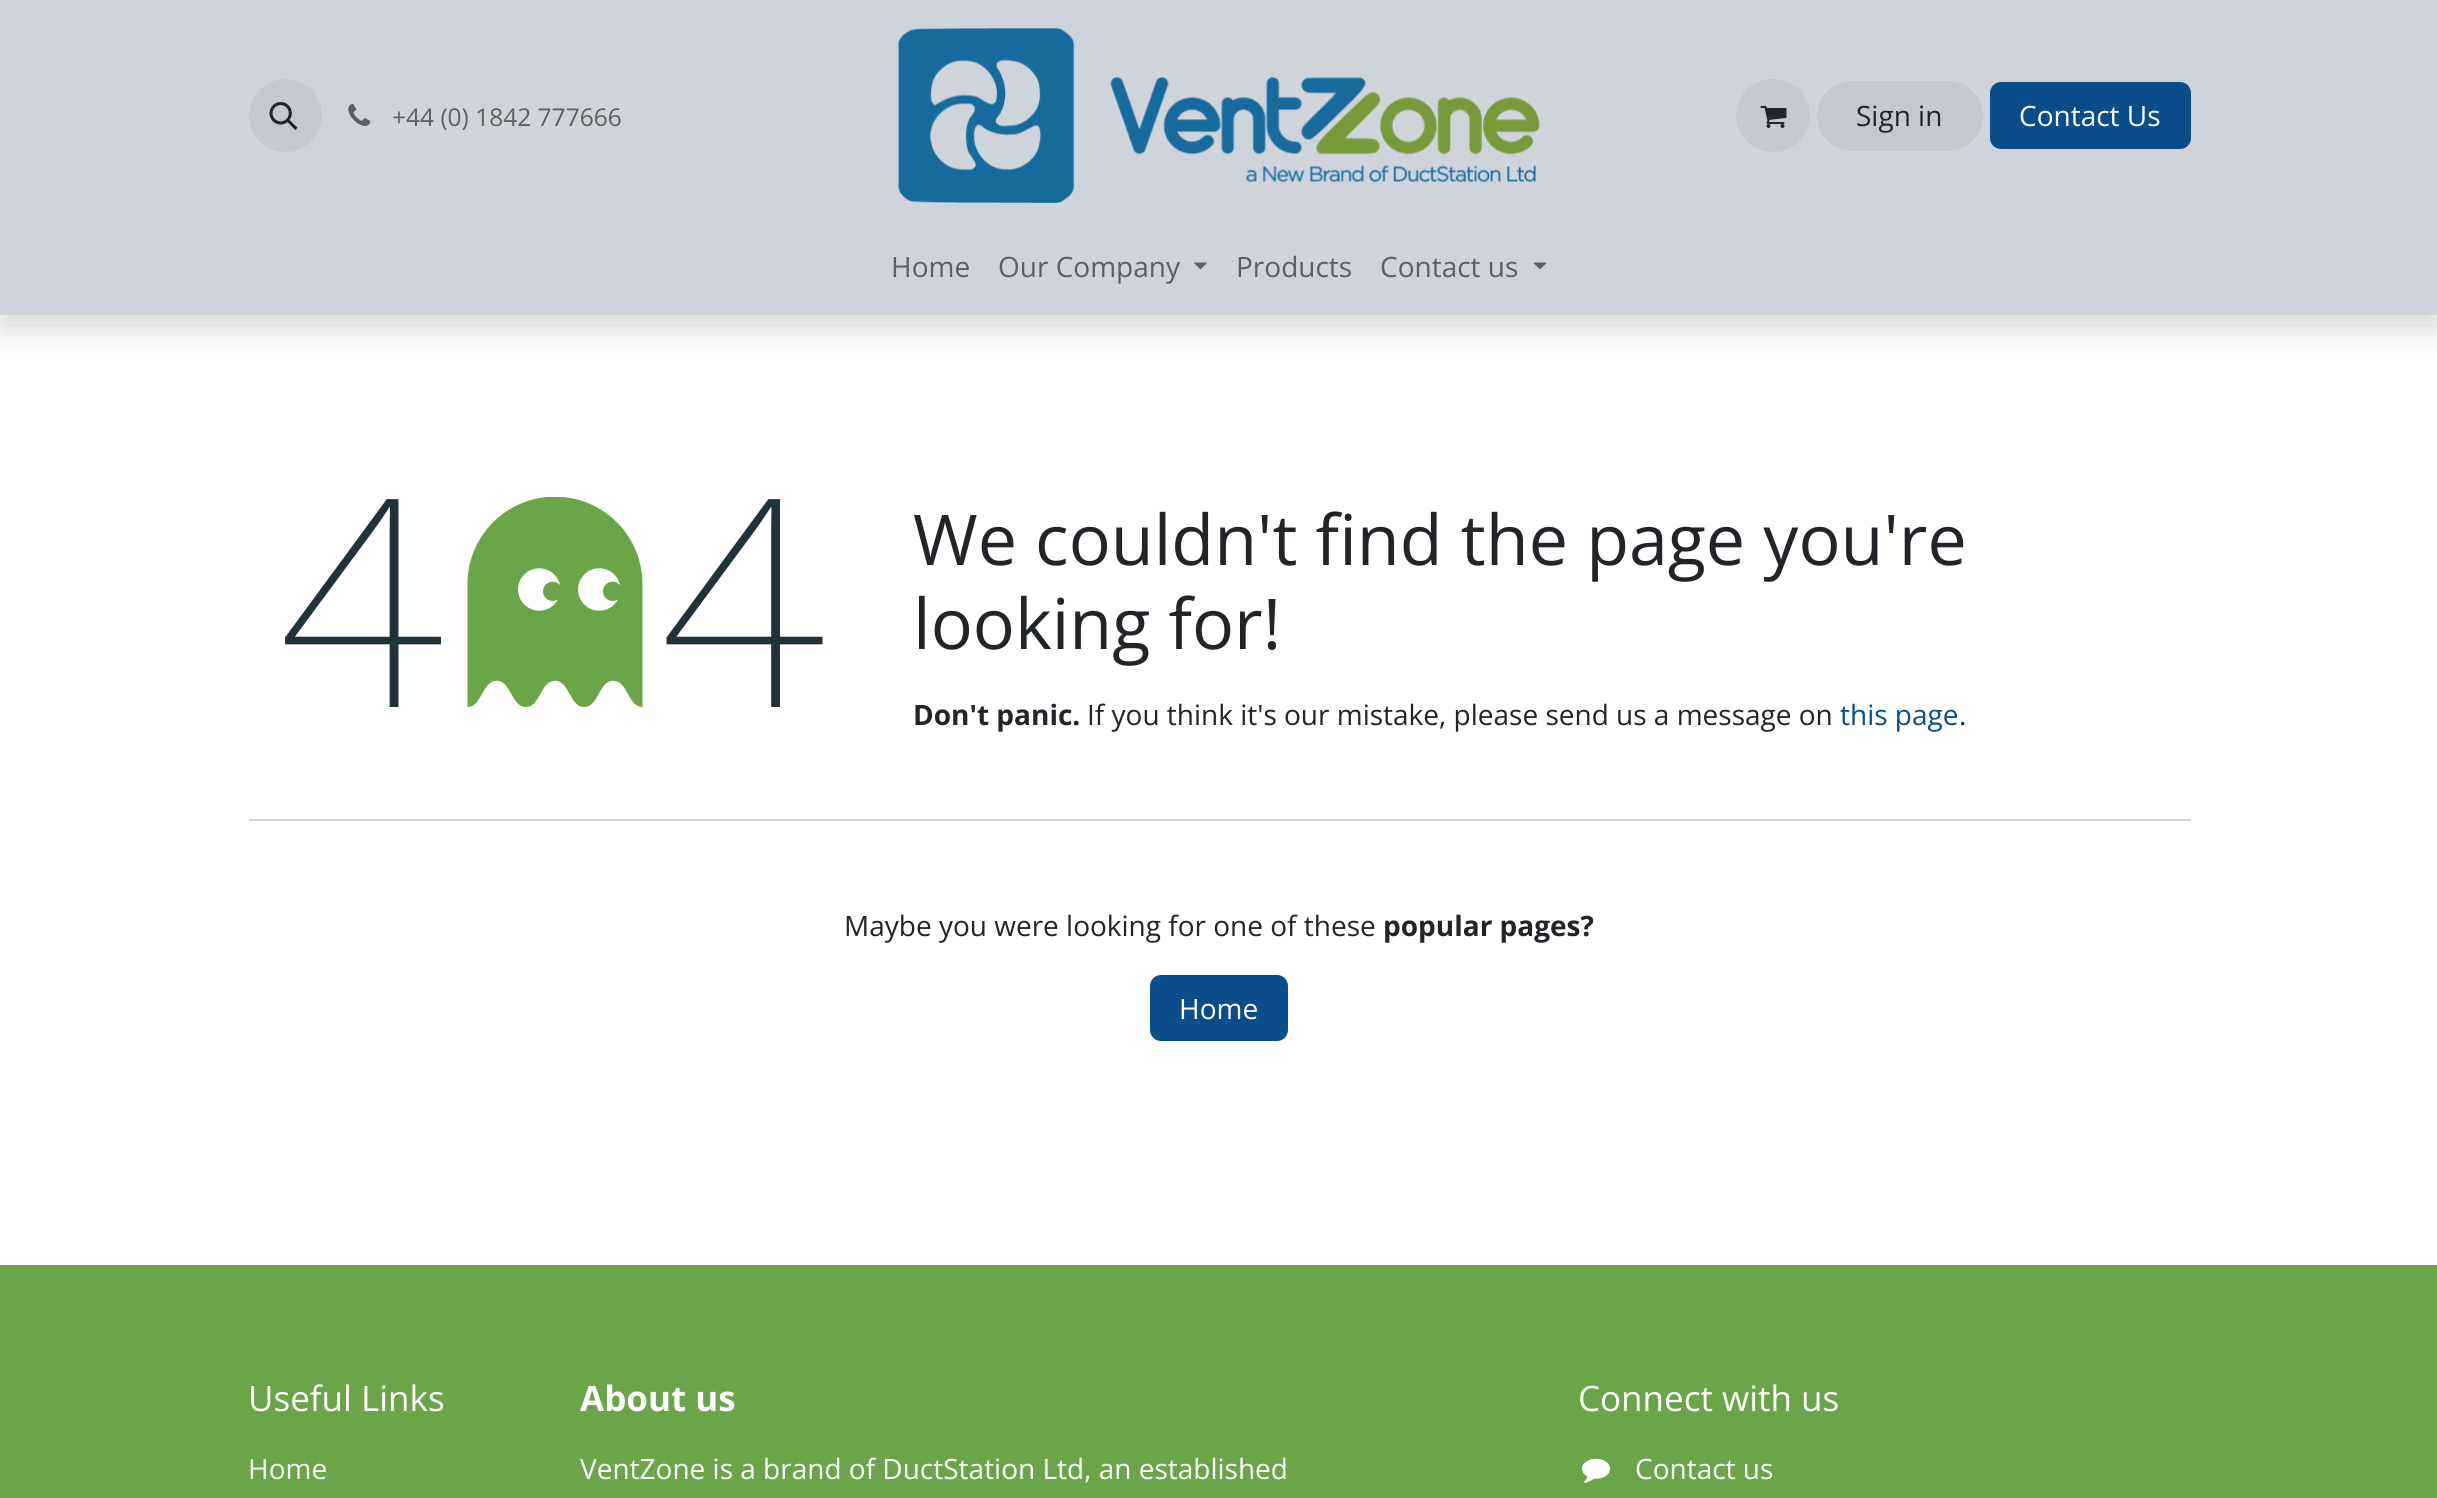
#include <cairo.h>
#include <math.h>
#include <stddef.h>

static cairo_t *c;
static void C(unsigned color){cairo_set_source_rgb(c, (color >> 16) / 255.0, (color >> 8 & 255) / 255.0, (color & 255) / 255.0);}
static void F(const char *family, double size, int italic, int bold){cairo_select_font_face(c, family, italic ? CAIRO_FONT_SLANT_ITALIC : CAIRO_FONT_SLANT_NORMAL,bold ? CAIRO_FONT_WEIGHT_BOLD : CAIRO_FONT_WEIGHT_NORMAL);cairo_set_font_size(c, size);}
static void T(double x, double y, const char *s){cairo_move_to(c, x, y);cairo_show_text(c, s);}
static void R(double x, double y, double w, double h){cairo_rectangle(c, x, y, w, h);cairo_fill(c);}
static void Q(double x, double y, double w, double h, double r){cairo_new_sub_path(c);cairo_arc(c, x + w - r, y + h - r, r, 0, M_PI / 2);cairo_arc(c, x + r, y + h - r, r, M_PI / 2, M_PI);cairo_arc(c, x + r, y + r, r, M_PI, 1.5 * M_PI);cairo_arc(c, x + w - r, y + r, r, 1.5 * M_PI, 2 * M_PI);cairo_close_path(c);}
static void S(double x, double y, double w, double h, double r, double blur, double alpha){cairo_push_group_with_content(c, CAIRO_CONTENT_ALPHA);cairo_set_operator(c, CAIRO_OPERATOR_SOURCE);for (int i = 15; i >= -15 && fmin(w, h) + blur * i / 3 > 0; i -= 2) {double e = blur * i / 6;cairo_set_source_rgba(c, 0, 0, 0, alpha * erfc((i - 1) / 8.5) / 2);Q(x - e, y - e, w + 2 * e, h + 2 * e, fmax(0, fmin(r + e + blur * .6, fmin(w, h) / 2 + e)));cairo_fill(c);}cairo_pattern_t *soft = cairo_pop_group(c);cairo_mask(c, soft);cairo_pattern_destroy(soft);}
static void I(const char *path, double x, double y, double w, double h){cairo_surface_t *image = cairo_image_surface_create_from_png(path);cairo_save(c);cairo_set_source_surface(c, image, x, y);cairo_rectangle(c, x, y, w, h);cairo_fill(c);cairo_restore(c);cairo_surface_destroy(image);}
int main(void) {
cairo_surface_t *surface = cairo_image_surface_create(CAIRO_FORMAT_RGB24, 2437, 1498);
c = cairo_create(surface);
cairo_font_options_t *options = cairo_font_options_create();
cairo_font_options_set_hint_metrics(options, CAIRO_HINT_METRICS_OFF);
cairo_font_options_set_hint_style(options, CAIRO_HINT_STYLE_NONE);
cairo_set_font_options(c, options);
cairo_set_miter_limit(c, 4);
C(0xffffff);
cairo_paint(c);
C(0x000000);
S(0,14,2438,315,0,14,.15);
C(0xced4da);
R(0,0,2437,315);
C(0xc4c9cf);
cairo_arc(c,285.5,115.5,36.5,0,2 * M_PI);
cairo_fill(c);
I("1.png",269,102,29,28);
I("2.png",348,104,23,22);
F("Open Sans",24.5,0,0);
C(0x5d5f62);
T(392,126,"+44 (0) 1842 777666");
I("3.png",897,28,643,175);
C(0xc4c9cf);
Q(1736,79,74,73,36.5);
cairo_fill(c);
I("4.png",1760,106,27,22);
Q(1817,81,166,70,35);
cairo_fill(c);
F("Open Sans",28,0,0);
C(0x212529);
T(1856,126,"Sign in");
C(0x094e8b);
Q(1991,83,199,65,10);
cairo_fill_preserve(c);
cairo_stroke(c);
C(0xffffff);
T(2019,126,"Contact Us");
C(0x5d5f62);
T(891,277,"Home");
T(998,277,"Our Company");
cairo_new_path(c);
cairo_move_to(c,1193.5,262.5);
cairo_line_to(c,1207.5,262.5);
cairo_line_to(c,1200.5,269.5);
cairo_close_path(c);
cairo_fill(c);
T(1236,277,"Products");
T(1380,277,"Contact us");
cairo_new_path(c);
cairo_move_to(c,1533,262.5);
cairo_line_to(c,1547,262.5);
cairo_line_to(c,1540,269.5);
cairo_close_path(c);
cairo_fill(c);
I("5.png",285,497,538,210);
F("Open Sans",70,0,0);
C(0x212529);
T(913,565,"We couldn't find the page you're");
T(913,649,"looking for!");
F("Open Sans",28,0,1);
T(913,725,"Don't panic.");
F("Open Sans",28,0,0);
T(1087,725,"If you think it's our mistake, please send us a message on");
C(0x094e8b);
T(1840,725,"this page");
C(0x212529);
T(1959,725,".");
C(0xced4da);
R(249,819,1942,2);
C(0x212529);
T(844,936,"Maybe you were looking for one of these");
F("Open Sans",28,0,1);
T(1383,936,"popular pages?");
C(0x094e8b);
Q(1151,976,136,64,10);
cairo_fill_preserve(c);
cairo_stroke(c);
F("Open Sans",28,0,0);
C(0xffffff);
T(1179,1019,"Home");
C(0x6ba54a);
R(0,1265,2437,233);
F("Open Sans",35,0,0);
C(0xffffff);
T(248,1411,"Useful Links");
F("Open Sans",28,0,0);
C(0xf6f6f6);
T(248,1479,"Home");
F("Open Sans",35,0,1);
C(0xffffff);
T(580,1411,"About us");
F("Open Sans",28,0,0);
T(580,1479,"VentZone is a brand of DuctStation Ltd, an established");
F("Open Sans",35,0,0);
T(1578,1411,"Connect with us");
I("6.png",1582,1458,28,25);
F("Open Sans",28,0,0);
T(1635,1479,"Contact us");
cairo_surface_write_to_png(surface, "o.png");
cairo_font_options_destroy(options);
cairo_destroy(c);
cairo_surface_destroy(surface);
return 0;
}
